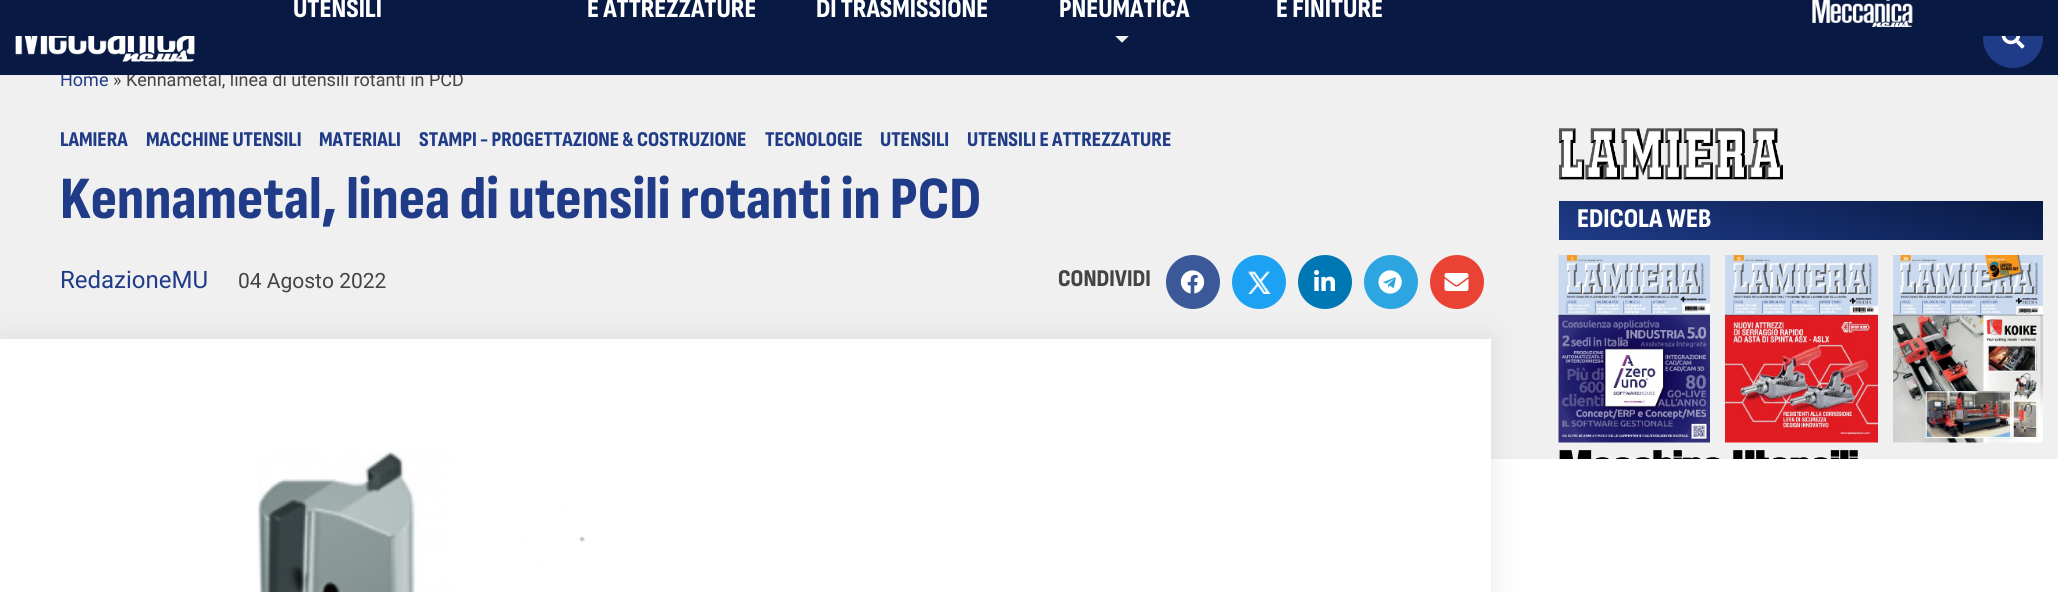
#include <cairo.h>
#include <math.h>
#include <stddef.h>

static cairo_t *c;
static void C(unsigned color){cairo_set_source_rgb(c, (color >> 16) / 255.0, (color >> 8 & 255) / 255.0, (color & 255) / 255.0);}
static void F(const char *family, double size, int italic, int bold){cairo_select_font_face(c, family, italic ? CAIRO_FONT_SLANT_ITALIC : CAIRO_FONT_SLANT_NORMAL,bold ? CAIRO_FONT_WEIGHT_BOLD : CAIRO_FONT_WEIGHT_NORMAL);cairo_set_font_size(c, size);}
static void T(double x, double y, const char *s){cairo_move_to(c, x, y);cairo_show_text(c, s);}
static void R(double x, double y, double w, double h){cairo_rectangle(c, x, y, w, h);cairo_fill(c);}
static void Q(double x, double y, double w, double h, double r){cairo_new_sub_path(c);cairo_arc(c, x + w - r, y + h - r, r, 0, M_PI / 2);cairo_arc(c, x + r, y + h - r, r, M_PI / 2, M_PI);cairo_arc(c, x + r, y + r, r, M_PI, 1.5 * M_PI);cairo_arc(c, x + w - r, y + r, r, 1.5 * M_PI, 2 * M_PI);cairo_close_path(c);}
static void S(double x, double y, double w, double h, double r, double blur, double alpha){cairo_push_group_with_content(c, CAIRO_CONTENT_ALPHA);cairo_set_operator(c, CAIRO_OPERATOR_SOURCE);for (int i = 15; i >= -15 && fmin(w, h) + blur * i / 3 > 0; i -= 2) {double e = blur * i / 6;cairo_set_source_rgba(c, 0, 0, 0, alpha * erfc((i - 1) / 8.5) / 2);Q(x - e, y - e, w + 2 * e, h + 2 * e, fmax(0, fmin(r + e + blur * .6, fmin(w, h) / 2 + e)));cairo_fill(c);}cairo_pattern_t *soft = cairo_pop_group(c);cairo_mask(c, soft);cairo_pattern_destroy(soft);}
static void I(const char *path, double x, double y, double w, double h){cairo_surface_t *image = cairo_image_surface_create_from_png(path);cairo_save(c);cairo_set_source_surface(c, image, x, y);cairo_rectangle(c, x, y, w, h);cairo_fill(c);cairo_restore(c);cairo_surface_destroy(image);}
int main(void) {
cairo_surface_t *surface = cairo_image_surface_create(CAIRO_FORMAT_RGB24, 2058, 592);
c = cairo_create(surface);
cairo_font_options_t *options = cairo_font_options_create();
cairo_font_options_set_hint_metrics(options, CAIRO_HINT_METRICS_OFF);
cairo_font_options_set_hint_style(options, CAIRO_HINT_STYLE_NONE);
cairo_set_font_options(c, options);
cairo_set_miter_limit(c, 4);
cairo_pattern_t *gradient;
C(0xffffff);
cairo_paint(c);
C(0xf0f0f0);
R(0,75,2058,384);
F("Roboto",18,0,0);
C(0x203c89);
T(60,86,"Home");
C(0x444444);
T(113,86,"» Kennametal, linea di utensili rotanti in PCD");
C(0x081943);
R(0,36,2058,39);
C(0x203c89);
cairo_new_path(c);
cairo_arc(c,2013,38,30,0,2 * M_PI);
cairo_fill(c);
C(0x081943);
R(0,0,2058,36);
F("Sofia Sans Condensed ExtraBold",27,0,0);
C(0xffffff);
T(293,17,"UTENSILI");
T(587,17,"E ATTREZZATURE");
T(816,17,"DI TRASMISSIONE");
T(1059,17,"PNEUMATICA");
T(1276,17,"E FINITURE");
I("1.png",1812,0,101,27);
I("2.png",15,36,180,26);
I("3.png",1115,36,14,7);
I("4.png",2001,36,24,13);
F("Sofia Sans Condensed ExtraBold",21,0,0);
C(0x203c89);
T(60,146,"LAMIERA");
T(146,146,"MACCHINE UTENSILI");
T(319,146,"MATERIALI");
T(419,146,"STAMPI - PROGETTAZIONE & COSTRUZIONE");
T(765,146,"TECNOLOGIE");
T(880,146,"UTENSILI");
T(967,146,"UTENSILI E ATTREZZATURE");
F("Sofia Sans Condensed ExtraBold",60,0,0);
T(60,218,"Kennametal, linea di utensili rotanti in PCD");
F("Roboto",24,0,0);
T(60,288,"RedazioneMU");
F("Roboto",21,0,0);
C(0x444444);
T(238,288,"04 Agosto 2022");
F("Sofia Sans Condensed ExtraBold",24,0,0);
T(1058,286,"CONDIVIDI");
C(0x3b5998);
cairo_new_path(c);
cairo_arc(c,1193,282,27,0,2 * M_PI);
cairo_fill(c);
I("5.png",1180,270,25,24);
C(0x1da1f2);
cairo_arc(c,1259,282,27,0,2 * M_PI);
cairo_fill(c);
I("6.png",1248,271,23,23);
C(0x0077b5);
cairo_arc(c,1325,282,27,0,2 * M_PI);
cairo_fill(c);
I("7.png",1314,270,21,21);
C(0x2ca5e0);
cairo_arc(c,1391,282,27,0,2 * M_PI);
cairo_fill(c);
I("8.png",1378,270,24,24);
C(0xea4335);
cairo_arc(c,1457,282,27,0,2 * M_PI);
cairo_fill(c);
I("9.png",1444,273,25,18);
I("10.png",1559,128,224,52);
gradient = cairo_pattern_create_linear(1780,299,1822,142);
cairo_pattern_add_color_stop_rgba(gradient,0,0.125,0.235,0.537,1);
cairo_pattern_add_color_stop_rgba(gradient,1,0.031,0.098,0.263,1);
cairo_set_source(c,gradient);
cairo_pattern_destroy(gradient);
R(1559,201,484,39);
F("Sofia Sans Condensed ExtraBold",27,0,0);
C(0xffffff);
T(1577,227,"EDICOLA WEB");
I("11.png",1558,255,152,188);
I("12.png",1725,255,153,188);
I("13.png",1893,255,150,188);
I("14.png",1559,450,299,9);
C(0x000000);
S(0,339,1491,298,0,15,.09);
C(0xffffff);
R(0,339,1491,253);
I("15.png",257,451,328,141);
cairo_surface_write_to_png(surface, "o.png");
cairo_font_options_destroy(options);
cairo_destroy(c);
cairo_surface_destroy(surface);
return 0;
}
